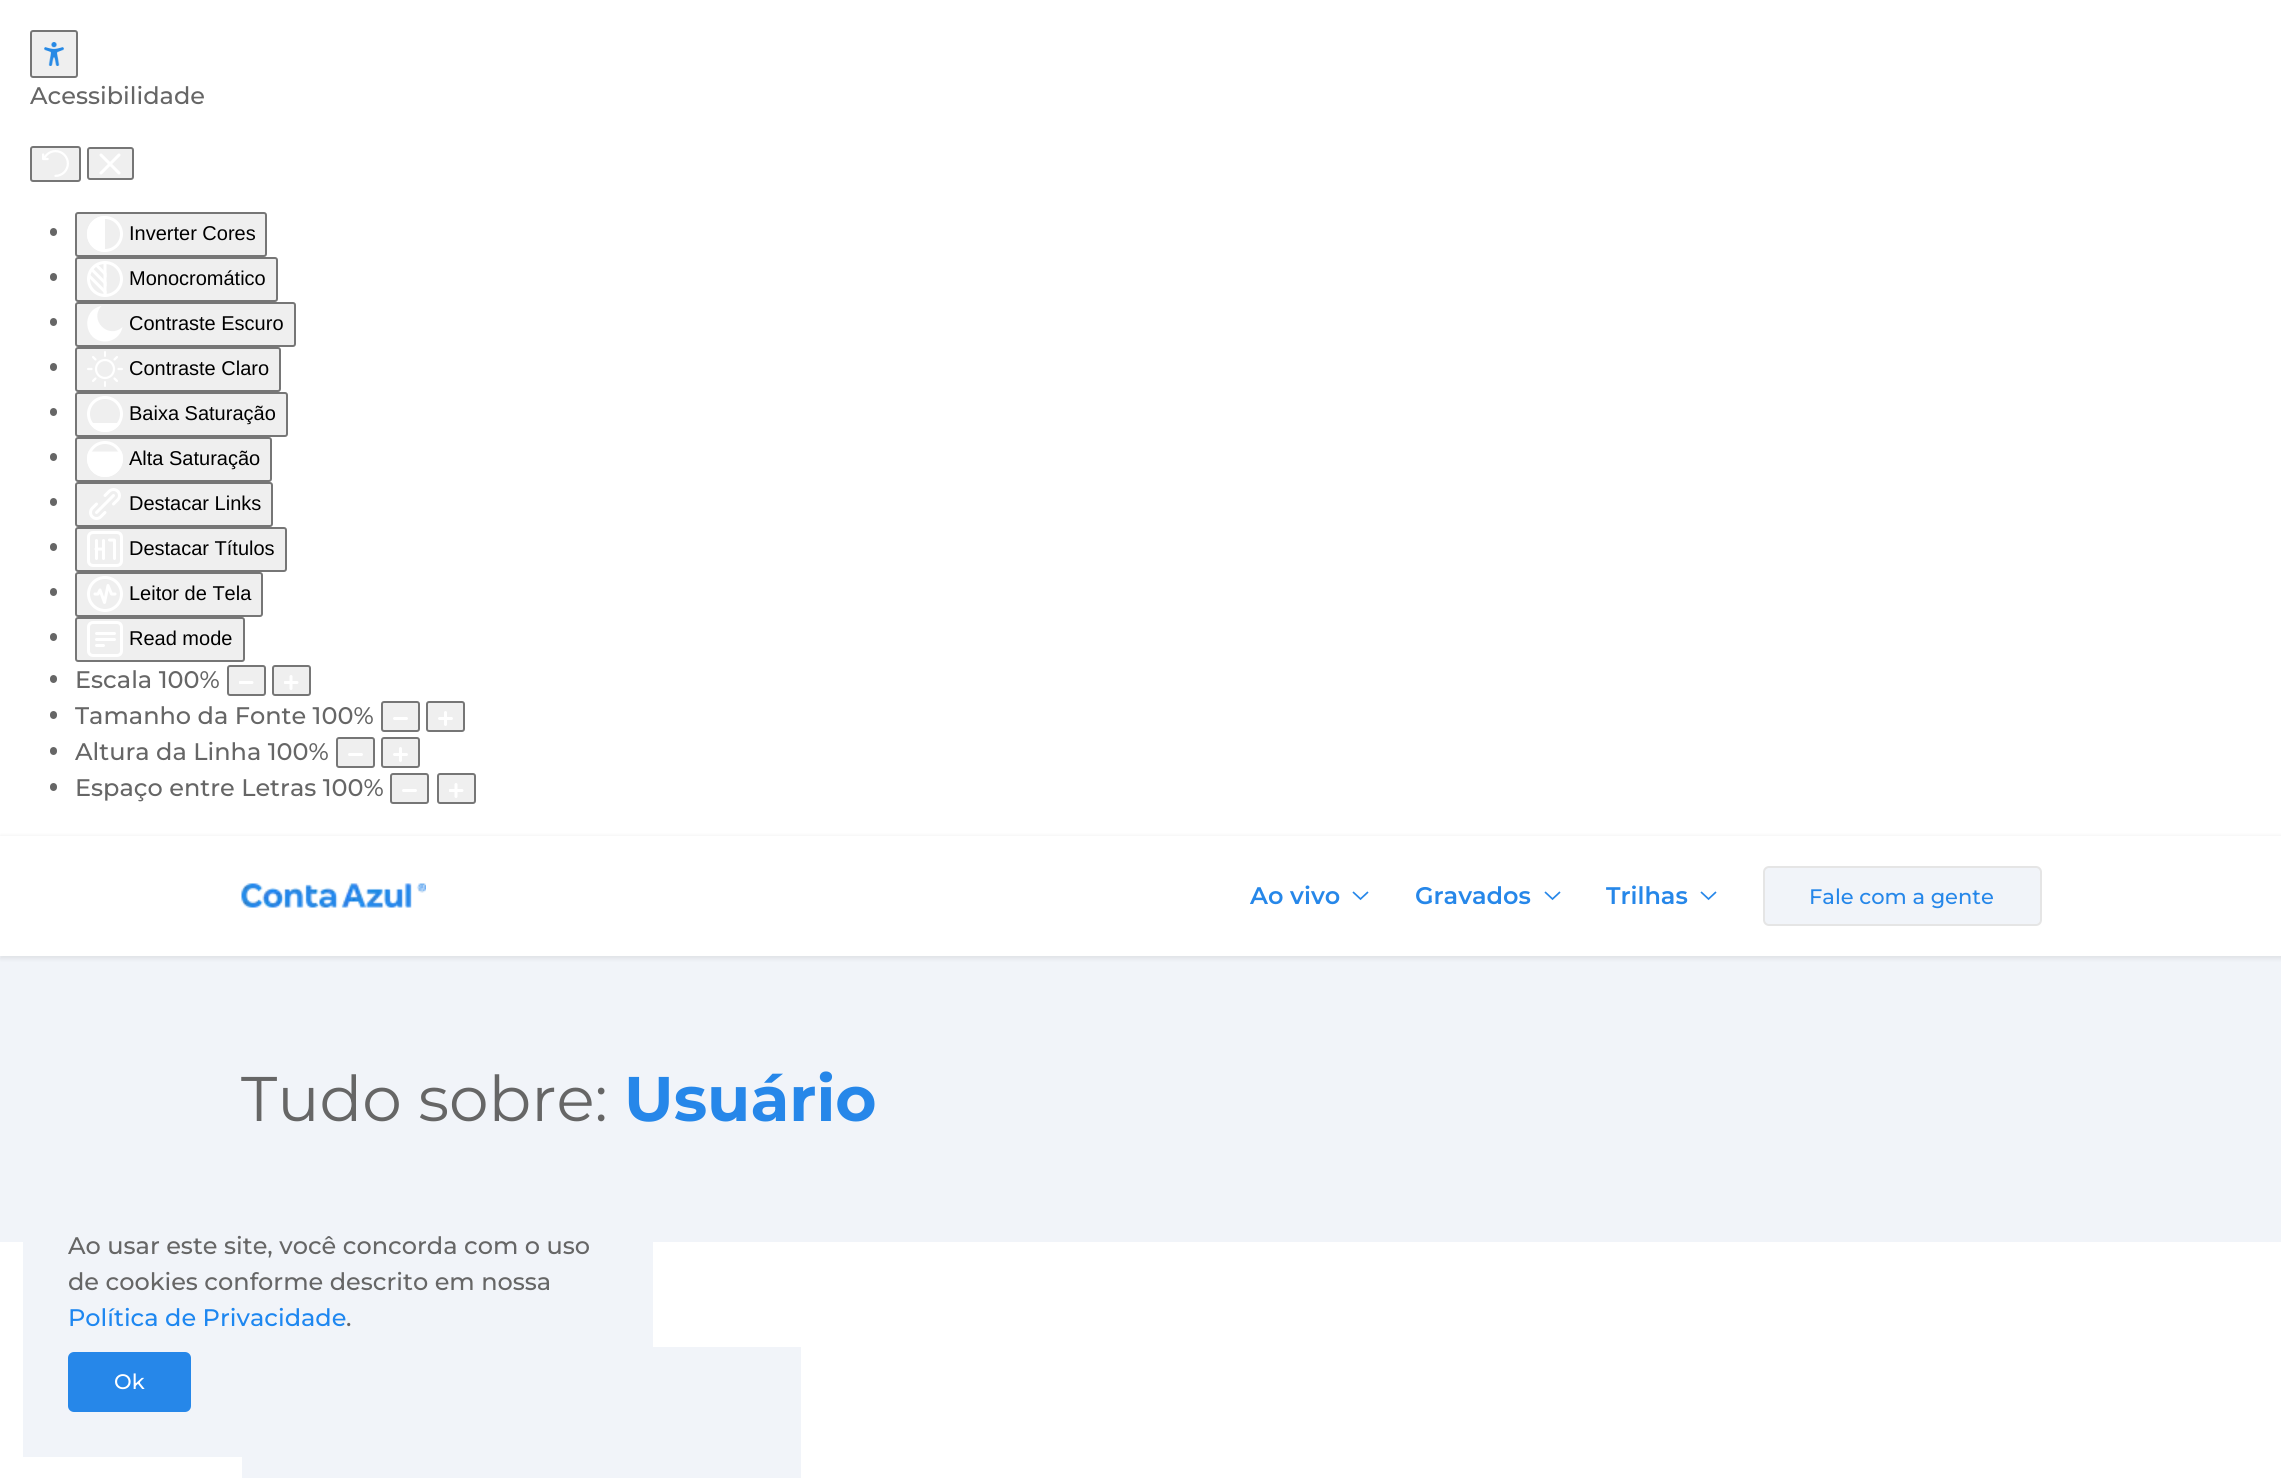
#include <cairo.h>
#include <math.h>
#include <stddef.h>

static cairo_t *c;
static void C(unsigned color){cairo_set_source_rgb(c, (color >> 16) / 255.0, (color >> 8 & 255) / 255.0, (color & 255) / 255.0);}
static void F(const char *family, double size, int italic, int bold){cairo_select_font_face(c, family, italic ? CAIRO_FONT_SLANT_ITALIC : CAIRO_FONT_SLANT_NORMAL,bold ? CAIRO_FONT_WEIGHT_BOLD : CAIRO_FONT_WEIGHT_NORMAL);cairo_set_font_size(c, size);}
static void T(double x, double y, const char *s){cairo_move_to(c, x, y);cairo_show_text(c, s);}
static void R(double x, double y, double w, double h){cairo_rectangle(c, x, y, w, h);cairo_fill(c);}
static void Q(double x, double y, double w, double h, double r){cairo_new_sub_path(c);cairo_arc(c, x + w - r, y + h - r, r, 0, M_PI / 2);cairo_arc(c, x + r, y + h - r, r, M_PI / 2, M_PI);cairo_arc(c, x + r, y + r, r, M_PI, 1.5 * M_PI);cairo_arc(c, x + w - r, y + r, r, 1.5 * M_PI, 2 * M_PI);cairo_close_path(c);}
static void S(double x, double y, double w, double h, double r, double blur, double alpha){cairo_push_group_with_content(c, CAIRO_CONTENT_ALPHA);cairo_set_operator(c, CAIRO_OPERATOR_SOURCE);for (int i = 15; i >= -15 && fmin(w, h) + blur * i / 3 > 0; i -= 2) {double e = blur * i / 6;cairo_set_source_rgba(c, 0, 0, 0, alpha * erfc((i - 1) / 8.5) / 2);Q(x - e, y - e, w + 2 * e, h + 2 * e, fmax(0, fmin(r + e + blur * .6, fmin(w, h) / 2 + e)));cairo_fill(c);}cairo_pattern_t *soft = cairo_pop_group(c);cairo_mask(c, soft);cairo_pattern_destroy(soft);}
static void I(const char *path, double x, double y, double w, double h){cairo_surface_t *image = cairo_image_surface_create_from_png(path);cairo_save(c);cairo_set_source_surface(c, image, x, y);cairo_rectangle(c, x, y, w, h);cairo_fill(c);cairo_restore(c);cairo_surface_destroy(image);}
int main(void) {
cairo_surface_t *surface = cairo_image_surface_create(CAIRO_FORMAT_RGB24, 2281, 1478);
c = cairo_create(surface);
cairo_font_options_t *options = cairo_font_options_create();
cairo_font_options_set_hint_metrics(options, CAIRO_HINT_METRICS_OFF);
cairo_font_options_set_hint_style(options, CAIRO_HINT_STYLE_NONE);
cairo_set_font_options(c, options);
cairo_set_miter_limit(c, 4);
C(0xffffff);
cairo_paint(c);
C(0xefefef);
Q(31,31,46,46,2);
cairo_fill_preserve(c);
C(0x767676);
cairo_stroke(c);
I("1.png",44,42,20,24);
F("Montserrat Thin",24,0,0);
C(0x666666);
T(30,104,"Acessibilidade");
C(0xefefef);
Q(31,147,49,34,2);
cairo_fill_preserve(c);
C(0x767676);
cairo_stroke(c);
I("2.png",42,150,27,27);
C(0xefefef);
Q(88,148,45,31,2);
cairo_fill_preserve(c);
C(0x767676);
cairo_stroke(c);
cairo_new_path(c);
cairo_move_to(c,101,155);
cairo_line_to(c,119,173);
cairo_move_to(c,119,155);
cairo_line_to(c,101,173);
C(0xffffff);
cairo_set_line_width(c,3);
cairo_set_line_cap(c,CAIRO_LINE_CAP_ROUND);
cairo_stroke(c);
C(0x666666);
Q(50,228,7,8,3.5);
cairo_fill(c);
C(0xefefef);
Q(76,213,190,43,2);
cairo_fill_preserve(c);
C(0x767676);
cairo_set_line_width(c,2);
cairo_set_line_cap(c,CAIRO_LINE_CAP_BUTT);
cairo_stroke(c);
cairo_arc(c,105,234,16.5,0,2 * M_PI);
C(0xffffff);
cairo_set_line_width(c,3);
cairo_stroke(c);
cairo_new_path(c);
cairo_move_to(c,87,234);
cairo_curve_to(c,87,224,95,216,105,216);
cairo_line_to(c,105,252);
cairo_curve_to(c,95,252,87,244,87,234);
cairo_close_path(c);
cairo_fill(c);
F("Liberation Sans",20,0,0);
C(0x000000);
T(129,240,"Inverter Cores");
C(0x666666);
Q(50,273,7,8,3.5);
cairo_fill(c);
C(0xefefef);
Q(76,258,201,43,2);
cairo_fill_preserve(c);
C(0x767676);
cairo_set_line_width(c,2);
cairo_stroke(c);
I("3.png",87,261,36,36);
C(0x000000);
T(129,285,"Monocromático");
C(0x666666);
Q(50,318,7,8,3.5);
cairo_fill(c);
C(0xefefef);
Q(76,303,219,43,2);
cairo_fill_preserve(c);
C(0x767676);
cairo_stroke(c);
C(0xffffff);
cairo_new_path(c);
cairo_move_to(c,105,341.5);
cairo_curve_to(c,83.5,341.5,80.5,310,101.5,306);
cairo_curve_to(c,88.5,320,108.5,340,122.5,327);
cairo_curve_to(c,121,335.5,113.5,341.5,105,341.5);
cairo_close_path(c);
cairo_fill(c);
C(0x000000);
T(129,330,"Contraste Escuro");
C(0x666666);
Q(50,363,7,8,3.5);
cairo_fill(c);
C(0xefefef);
Q(76,348,204,43,2);
cairo_fill_preserve(c);
C(0x767676);
cairo_stroke(c);
I("4.png",87,351,36,36);
C(0x000000);
T(129,375,"Contraste Claro");
C(0x666666);
Q(50,408,7,8,3.5);
cairo_fill(c);
C(0xefefef);
Q(76,393,211,43,2);
cairo_fill_preserve(c);
C(0x767676);
cairo_stroke(c);
cairo_arc(c,105,414,16.5,0,2 * M_PI);
C(0xffffff);
cairo_set_line_width(c,3);
cairo_stroke(c);
C(0x000000);
T(129,420,"Baixa Saturação");
C(0xffffff);
cairo_new_path(c);
cairo_move_to(c,105,432);
cairo_curve_to(c,98.5,432,92.5,428.5,89.5,423);
cairo_line_to(c,120.5,423);
cairo_curve_to(c,117.5,428.5,111.5,432,105,432);
cairo_close_path(c);
cairo_fill(c);
C(0x666666);
Q(50,453,7,8,3.5);
cairo_fill(c);
C(0xefefef);
Q(76,438,195,43,2);
cairo_fill_preserve(c);
C(0x767676);
cairo_set_line_width(c,2);
cairo_stroke(c);
cairo_arc(c,105,459,16.5,0,2 * M_PI);
C(0xffffff);
cairo_set_line_width(c,3);
cairo_stroke(c);
C(0x000000);
T(129,465,"Alta Saturação");
C(0xffffff);
cairo_new_path(c);
cairo_move_to(c,105,477);
cairo_curve_to(c,92,477,83.5,463,88.5,451.5);
cairo_line_to(c,121.5,451.5);
cairo_curve_to(c,126.5,463,118,477,105,477);
cairo_close_path(c);
cairo_fill(c);
C(0x666666);
Q(50,498,7,8,3.5);
cairo_fill(c);
C(0xefefef);
Q(76,483,196,43,2);
cairo_fill_preserve(c);
C(0x767676);
cairo_set_line_width(c,2);
cairo_stroke(c);
I("5.png",89,488,32,32);
C(0x000000);
T(129,510,"Destacar Links");
C(0x666666);
Q(50,543,7,8,3.5);
cairo_fill(c);
C(0xefefef);
Q(76,528,210,43,2);
cairo_fill_preserve(c);
C(0x767676);
cairo_stroke(c);
I("6.png",87,531,36,36);
C(0x000000);
T(129,555,"Destacar Títulos");
C(0x666666);
Q(50,588,7,8,3.5);
cairo_fill(c);
C(0xefefef);
Q(76,573,186,43,2);
cairo_fill_preserve(c);
C(0x767676);
cairo_stroke(c);
cairo_arc(c,105,594,16.5,0,2 * M_PI);
C(0xffffff);
cairo_set_line_width(c,3);
cairo_stroke(c);
cairo_new_path(c);
cairo_move_to(c,95,594);
cairo_line_to(c,98,594);
cairo_line_to(c,100,590);
cairo_line_to(c,104.5,602.5);
cairo_line_to(c,108,585.5);
cairo_line_to(c,111.5,594);
cairo_line_to(c,115,594);
cairo_set_line_cap(c,CAIRO_LINE_CAP_ROUND);
cairo_set_line_join(c,CAIRO_LINE_JOIN_ROUND);
cairo_stroke(c);
C(0x000000);
T(129,600,"Leitor de Tela");
C(0x666666);
Q(50,633,7,8,3.5);
cairo_fill(c);
C(0xefefef);
Q(76,618,168,43,2);
cairo_fill_preserve(c);
C(0x767676);
cairo_set_line_width(c,2);
cairo_set_line_cap(c,CAIRO_LINE_CAP_BUTT);
cairo_set_line_join(c,CAIRO_LINE_JOIN_MITER);
cairo_stroke(c);
Q(88.5,622.5,33,33,4.5);
C(0xffffff);
cairo_set_line_width(c,3);
cairo_stroke(c);
C(0x000000);
T(129,645,"Read mode");
C(0xffffff);
Q(95,632,21,3,1.5);
cairo_fill(c);
Q(95,638,21,3,1.5);
cairo_fill(c);
Q(95,644,10,3,1.5);
cairo_fill(c);
C(0x666666);
Q(50,675,7,8,3.5);
cairo_fill(c);
F("Montserrat Thin",24,0,0);
T(75,688,"Escala 100%");
C(0xefefef);
Q(228,666,37,29,2);
cairo_fill_preserve(c);
C(0x767676);
cairo_set_line_width(c,2);
cairo_stroke(c);
cairo_save(c);
cairo_rectangle(c,239,681,15,3);
cairo_clip(c);
cairo_new_path(c);
cairo_move_to(c,252,682.5);
cairo_line_to(c,240,682.5);
C(0xffffff);
cairo_set_line_width(c,3);
cairo_set_line_cap(c,CAIRO_LINE_CAP_ROUND);
cairo_stroke(c);
cairo_restore(c);
C(0xefefef);
Q(273,666,37,29,2);
cairo_fill_preserve(c);
C(0x767676);
cairo_stroke(c);
cairo_new_path(c);
cairo_move_to(c,291,676.5);
cairo_line_to(c,291,688.5);
C(0xffffff);
cairo_set_line_width(c,3);
cairo_set_line_cap(c,CAIRO_LINE_CAP_ROUND);
cairo_stroke(c);
cairo_save(c);
cairo_rectangle(c,284,675,15,15);
cairo_clip(c);
cairo_new_path(c);
cairo_move_to(c,297,682.5);
cairo_line_to(c,285,682.5);
cairo_stroke(c);
cairo_restore(c);
C(0x666666);
Q(50,711,7,8,3.5);
cairo_fill(c);
C(0xefefef);
Q(382,702,37,29,2);
cairo_fill_preserve(c);
C(0x767676);
cairo_set_line_width(c,2);
cairo_set_line_cap(c,CAIRO_LINE_CAP_BUTT);
cairo_stroke(c);
C(0xefefef);
Q(427,702,37,29,2);
cairo_fill_preserve(c);
C(0x767676);
cairo_stroke(c);
cairo_new_path(c);
cairo_move_to(c,406.5,718.5);
cairo_line_to(c,394.5,718.5);
cairo_move_to(c,445.5,712.5);
cairo_line_to(c,445.5,724.5);
cairo_move_to(c,451.5,718.5);
cairo_line_to(c,439.5,718.5);
C(0xffffff);
cairo_set_line_width(c,3);
cairo_set_line_cap(c,CAIRO_LINE_CAP_ROUND);
cairo_stroke(c);
C(0x666666);
T(75,724,"Tamanho da Fonte 100%");
Q(50,747,7,8,3.5);
cairo_fill(c);
C(0xefefef);
Q(337,738,37,29,2);
cairo_fill_preserve(c);
C(0x767676);
cairo_set_line_width(c,2);
cairo_set_line_cap(c,CAIRO_LINE_CAP_BUTT);
cairo_stroke(c);
C(0xefefef);
Q(382,738,37,29,2);
cairo_fill_preserve(c);
C(0x767676);
cairo_stroke(c);
cairo_new_path(c);
cairo_move_to(c,361.5,754.5);
cairo_line_to(c,349.5,754.5);
cairo_move_to(c,400.5,748.5);
cairo_line_to(c,400.5,760.5);
cairo_move_to(c,406.5,754.5);
cairo_line_to(c,394.5,754.5);
C(0xffffff);
cairo_set_line_width(c,3);
cairo_set_line_cap(c,CAIRO_LINE_CAP_ROUND);
cairo_stroke(c);
C(0x666666);
T(75,760,"Altura da Linha 100%");
Q(50,783,7,8,3.5);
cairo_fill(c);
C(0xefefef);
Q(391,774,37,29,2);
cairo_fill_preserve(c);
C(0x767676);
cairo_set_line_width(c,2);
cairo_set_line_cap(c,CAIRO_LINE_CAP_BUTT);
cairo_stroke(c);
C(0xefefef);
Q(438,774,37,29,2);
cairo_fill_preserve(c);
C(0x767676);
cairo_stroke(c);
cairo_new_path(c);
cairo_move_to(c,415.5,790.5);
cairo_line_to(c,403.5,790.5);
cairo_move_to(c,456,784.5);
cairo_line_to(c,456,796.5);
C(0xffffff);
cairo_set_line_width(c,3);
cairo_set_line_cap(c,CAIRO_LINE_CAP_ROUND);
cairo_stroke(c);
C(0x666666);
T(75,796,"Espaço entre Letras 100%");
cairo_save(c);
cairo_rectangle(c,449,783,15,15);
cairo_clip(c);
cairo_new_path(c);
cairo_move_to(c,462,790.5);
cairo_line_to(c,450,790.5);
C(0xffffff);
cairo_stroke(c);
cairo_restore(c);
C(0xf1f4f9);
R(0,956,2281,286);
C(0x000000);
S(0,836,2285,123,0,2,.07);
C(0xffffff);
R(0,836,2281,120);
I("7.png",241,883,185,25);
F("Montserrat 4 Thin",24,0,0);
C(0x2687e9);
T(1250,904,"Ao vivo");
cairo_new_path(c);
cairo_move_to(c,1353,892);
cairo_line_to(c,1360.5,899);
cairo_line_to(c,1368,892);
cairo_set_line_width(c,1.7);
cairo_set_line_cap(c,CAIRO_LINE_CAP_BUTT);
cairo_stroke(c);
T(1415,904,"Gravados");
cairo_new_path(c);
cairo_move_to(c,1545,892);
cairo_line_to(c,1552.5,899);
cairo_line_to(c,1560,892);
cairo_stroke(c);
T(1606,904,"Trilhas");
cairo_new_path(c);
cairo_move_to(c,1701,892);
cairo_line_to(c,1708.5,899);
cairo_line_to(c,1716,892);
cairo_stroke(c);
C(0xf1f4f9);
Q(1764,867,277,58,5);
cairo_fill_preserve(c);
C(0xe5e5e5);
cairo_set_line_width(c,2);
cairo_stroke(c);
F("Montserrat Thin",21,0,0);
C(0x2687e9);
T(1809,904,"Fale com a gente");
F("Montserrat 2 Thin",63,0,0);
C(0x666666);
T(241,1121,"Tudo sobre:");
F("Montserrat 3 Thin",63,0,0);
C(0x2687e9);
T(624,1121,"Usuário");
C(0xf1f4f9);
R(242,1347,559,131);
R(23,1242,630,215);
F("Montserrat Thin",24,0,0);
C(0x666666);
T(68,1254,"Ao usar este site, você concorda com o uso");
T(68,1290,"de cookies conforme descrito em nossa");
C(0x1e87f0);
T(68,1326,"Política de Privacidade");
C(0x666666);
T(346,1326,".");
C(0x2687e9);
Q(68,1352,123,60,6);
cairo_fill(c);
F("Montserrat Thin",21,0,0);
C(0xffffff);
T(114,1389,"Ok");
cairo_surface_write_to_png(surface, "o.png");
cairo_font_options_destroy(options);
cairo_destroy(c);
cairo_surface_destroy(surface);
return 0;
}
